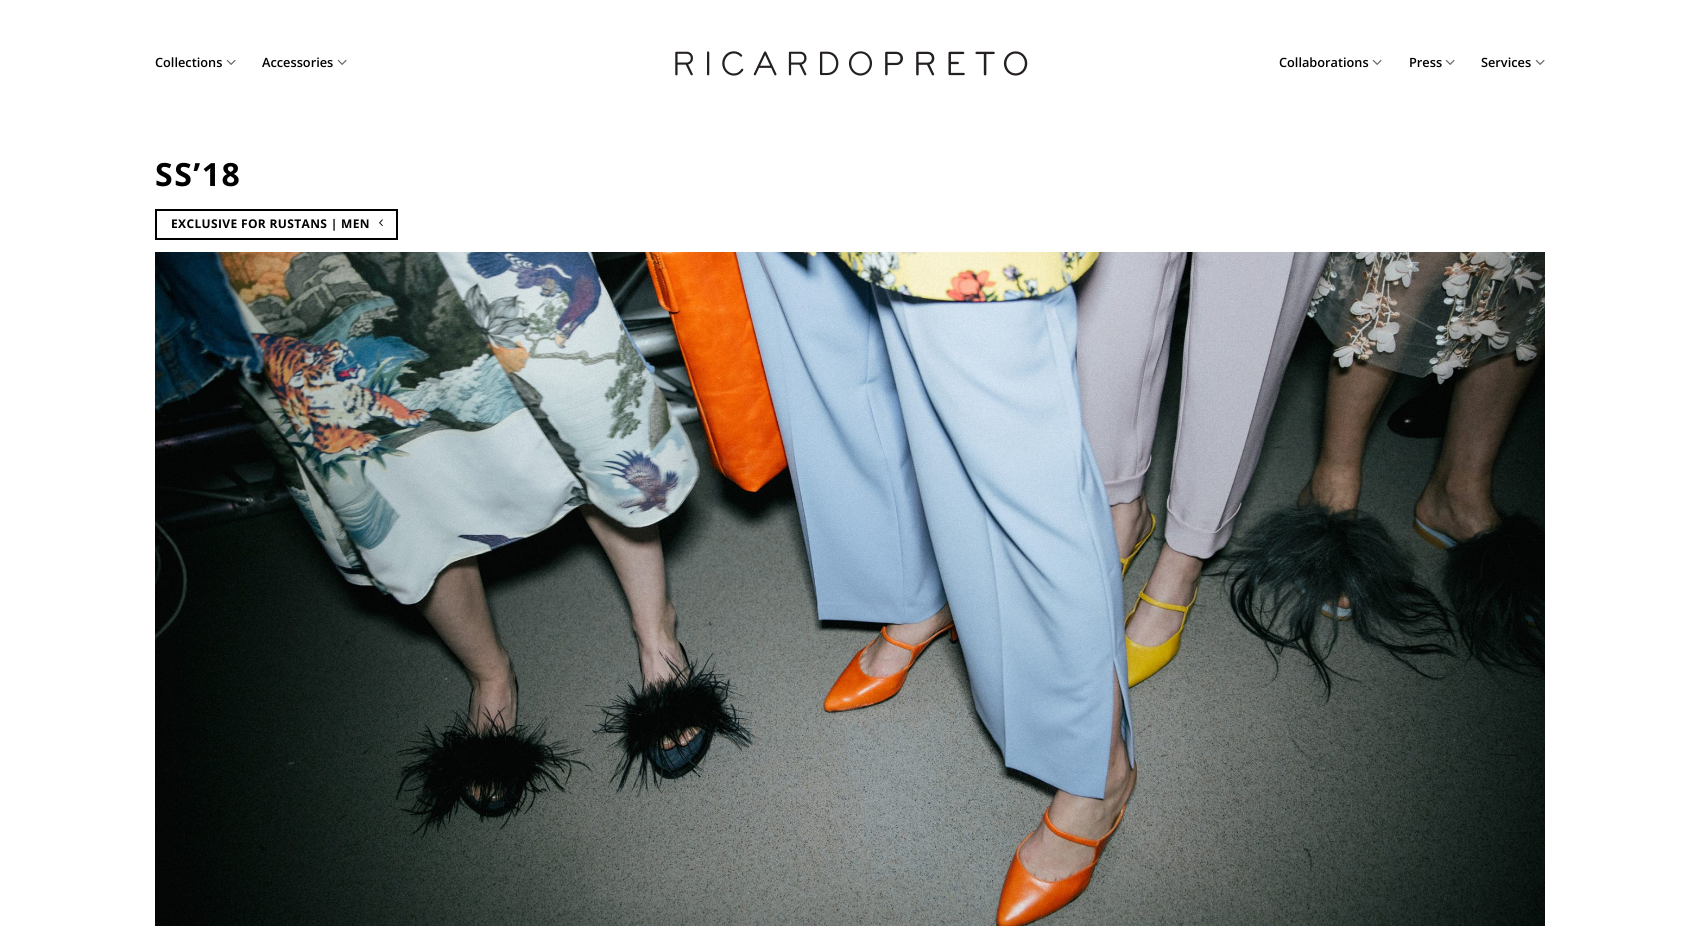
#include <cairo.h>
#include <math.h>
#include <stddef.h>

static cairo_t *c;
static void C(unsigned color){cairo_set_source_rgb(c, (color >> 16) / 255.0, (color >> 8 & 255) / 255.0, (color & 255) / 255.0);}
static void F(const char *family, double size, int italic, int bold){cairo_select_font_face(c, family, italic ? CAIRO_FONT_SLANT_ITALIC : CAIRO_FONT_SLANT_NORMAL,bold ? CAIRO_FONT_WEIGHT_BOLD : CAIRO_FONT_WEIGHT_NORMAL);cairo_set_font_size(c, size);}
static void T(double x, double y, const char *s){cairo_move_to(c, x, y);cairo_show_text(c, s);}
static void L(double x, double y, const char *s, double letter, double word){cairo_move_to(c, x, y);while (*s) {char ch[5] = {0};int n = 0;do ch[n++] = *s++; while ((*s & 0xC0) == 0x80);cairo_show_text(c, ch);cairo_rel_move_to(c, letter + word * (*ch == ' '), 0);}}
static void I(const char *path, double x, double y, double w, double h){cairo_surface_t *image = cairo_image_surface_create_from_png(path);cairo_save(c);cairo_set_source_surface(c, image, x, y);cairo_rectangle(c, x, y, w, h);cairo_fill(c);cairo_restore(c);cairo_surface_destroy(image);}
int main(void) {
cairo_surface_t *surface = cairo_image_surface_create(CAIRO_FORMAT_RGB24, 1700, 926);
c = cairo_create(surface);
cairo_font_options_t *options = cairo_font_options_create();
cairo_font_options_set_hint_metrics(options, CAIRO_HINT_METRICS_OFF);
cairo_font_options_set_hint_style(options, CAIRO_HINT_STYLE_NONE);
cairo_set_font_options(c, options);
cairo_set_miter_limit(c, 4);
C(0xffffff);
cairo_paint(c);
F("Open Sans SemiBold",12.75,0,0);
C(0x000000);
T(155,67,"Collections");
I("1.png",226,59,10,6);
T(262,67,"Accessories");
I("1.png",337,59,10,6);
I("2.png",675,51,353,25);
T(1279,67,"Collaborations");
I("1.png",1372,59,10,6);
T(1409,67,"Press");
I("1.png",1445,59,10,6);
T(1481,67,"Services");
I("1.png",1535,59,10,6);
F("Open Sans",32,0,1);
L(155,186,"SS’18",1.5,0);
cairo_rectangle(c,156,210,241,29);
cairo_stroke(c);
F("Open Sans",12,0,1);
L(171,228,"EXCLUSIVE FOR RUSTANS | MEN",.35,0);
I("3.png",379,219,4,7);
I("4.png",155,252,1390,674);
cairo_surface_write_to_png(surface, "o.png");
cairo_font_options_destroy(options);
cairo_destroy(c);
cairo_surface_destroy(surface);
return 0;
}
